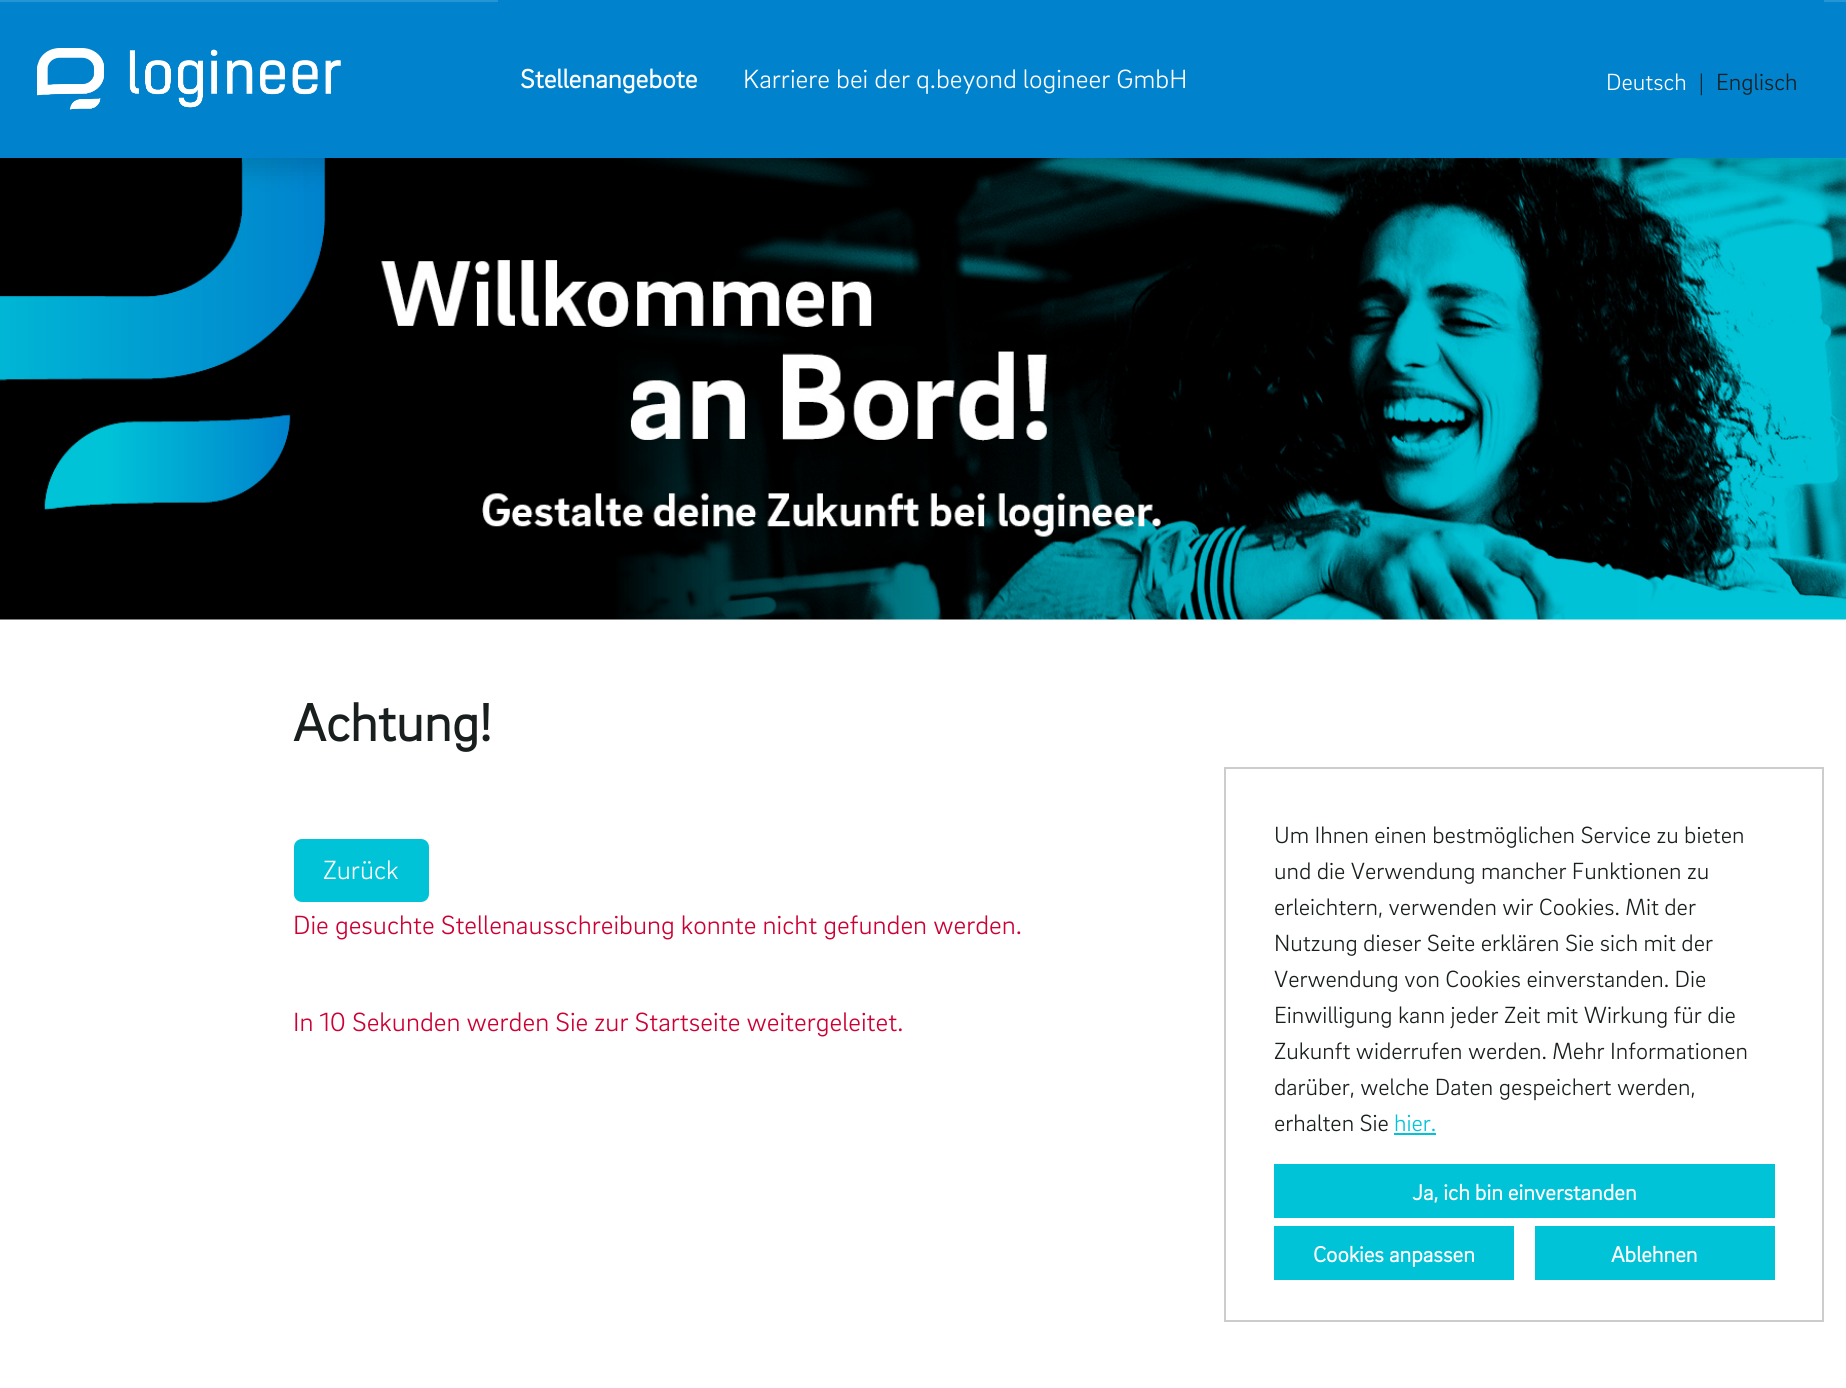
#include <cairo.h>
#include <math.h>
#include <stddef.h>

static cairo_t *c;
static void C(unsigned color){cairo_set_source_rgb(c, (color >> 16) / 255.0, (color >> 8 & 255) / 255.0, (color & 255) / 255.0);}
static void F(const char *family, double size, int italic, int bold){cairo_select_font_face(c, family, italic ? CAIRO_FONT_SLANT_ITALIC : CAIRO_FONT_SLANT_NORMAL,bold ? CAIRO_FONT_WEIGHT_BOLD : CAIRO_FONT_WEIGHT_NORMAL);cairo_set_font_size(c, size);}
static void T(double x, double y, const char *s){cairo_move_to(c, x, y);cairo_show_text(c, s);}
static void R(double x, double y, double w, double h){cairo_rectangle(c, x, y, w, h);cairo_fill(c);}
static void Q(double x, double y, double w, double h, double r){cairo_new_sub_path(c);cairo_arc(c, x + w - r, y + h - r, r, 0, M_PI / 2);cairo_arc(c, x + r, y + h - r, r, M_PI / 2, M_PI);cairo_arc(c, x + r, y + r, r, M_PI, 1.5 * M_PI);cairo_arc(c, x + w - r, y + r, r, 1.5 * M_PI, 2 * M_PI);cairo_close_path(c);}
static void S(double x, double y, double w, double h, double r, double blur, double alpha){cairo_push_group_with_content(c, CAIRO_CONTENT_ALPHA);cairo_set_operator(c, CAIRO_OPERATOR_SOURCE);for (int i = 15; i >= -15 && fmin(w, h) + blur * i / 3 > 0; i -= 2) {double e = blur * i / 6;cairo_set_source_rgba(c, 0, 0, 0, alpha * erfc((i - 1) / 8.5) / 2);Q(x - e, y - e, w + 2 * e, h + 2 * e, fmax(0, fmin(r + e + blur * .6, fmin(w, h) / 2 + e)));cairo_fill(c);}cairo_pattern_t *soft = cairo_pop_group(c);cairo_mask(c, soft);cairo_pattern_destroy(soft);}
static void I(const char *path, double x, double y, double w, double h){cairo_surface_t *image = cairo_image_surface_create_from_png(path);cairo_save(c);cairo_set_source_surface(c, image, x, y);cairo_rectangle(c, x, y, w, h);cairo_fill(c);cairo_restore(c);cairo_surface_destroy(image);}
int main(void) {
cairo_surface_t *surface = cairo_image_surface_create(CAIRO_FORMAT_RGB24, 1846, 1388);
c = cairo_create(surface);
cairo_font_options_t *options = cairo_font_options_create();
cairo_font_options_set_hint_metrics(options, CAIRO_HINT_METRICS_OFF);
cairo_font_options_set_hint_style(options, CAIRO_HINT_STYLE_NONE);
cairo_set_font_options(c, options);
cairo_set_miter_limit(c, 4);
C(0xffffff);
cairo_paint(c);
I("2.png",0,158,1846,462);
C(0x000000);
S(0,12,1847,158,0,12,.15);
C(0x0082cd);
R(0,2,1846,156);
C(0x2695d5);
R(0,0,1846,2);
I("1.png",37,48,304,62);
C(0x0082cd);
R(498,0,1326,2);
F("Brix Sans",27,0,1);
C(0xffffff);
T(520,88,"Stellenangebote");
F("Brix Sans Light",27,0,0);
T(743,88,"Karriere bei der q.beyond logineer GmbH");
F("Brix Sans Light",24,0,0);
T(1606,90,"Deutsch");
C(0x191e1e);
T(1699,90,"|");
T(1716,90,"Englisch");
F("Brix Sans",54,0,1);
T(293,741,"Achtung!");
C(0x00c3d7);
Q(294,839,135,63,8);
cairo_fill(c);
F("Brix Sans Light",27,0,0);
C(0xffffff);
T(323,879,"Zurück");
C(0xcc0033);
T(293,934,"Die gesuchte Stellenausschreibung konnte nicht gefunden werden.");
T(293,1031,"In 10 Sekunden werden Sie zur Startseite weitergeleitet.");
cairo_rectangle(c,1225,768,598,553);
C(0xcccccc);
cairo_stroke(c);
F("Brix Sans Light",24,0,0);
C(0x191e1e);
T(1274,843,"Um Ihnen einen bestmöglichen Service zu bieten");
T(1274,879,"und die Verwendung mancher Funktionen zu");
T(1274,915,"erleichtern, verwenden wir Cookies. Mit der");
T(1274,951,"Nutzung dieser Seite erklären Sie sich mit der");
T(1274,987,"Verwendung von Cookies einverstanden. Die");
T(1274,1023,"Einwilligung kann jeder Zeit mit Wirkung für die");
T(1274,1059,"Zukunft widerrufen werden. Mehr Informationen");
T(1274,1095,"darüber, welche Daten gespeichert werden,");
T(1274,1131,"erhalten Sie");
C(0x00c3d7);
T(1394,1131,"hier.");
R(1394,1133,42,2);
R(1274,1164,501,54);
F("Brix Sans",22.5,0,1);
C(0xffffff);
T(1412,1200,"Ja, ich bin einverstanden");
C(0x00c3d7);
R(1274,1226,240,54);
C(0xffffff);
T(1313,1262,"Cookies anpassen");
C(0x00c3d7);
R(1535,1226,240,54);
C(0xffffff);
T(1611,1262,"Ablehnen");
cairo_surface_write_to_png(surface, "o.png");
cairo_font_options_destroy(options);
cairo_destroy(c);
cairo_surface_destroy(surface);
return 0;
}
